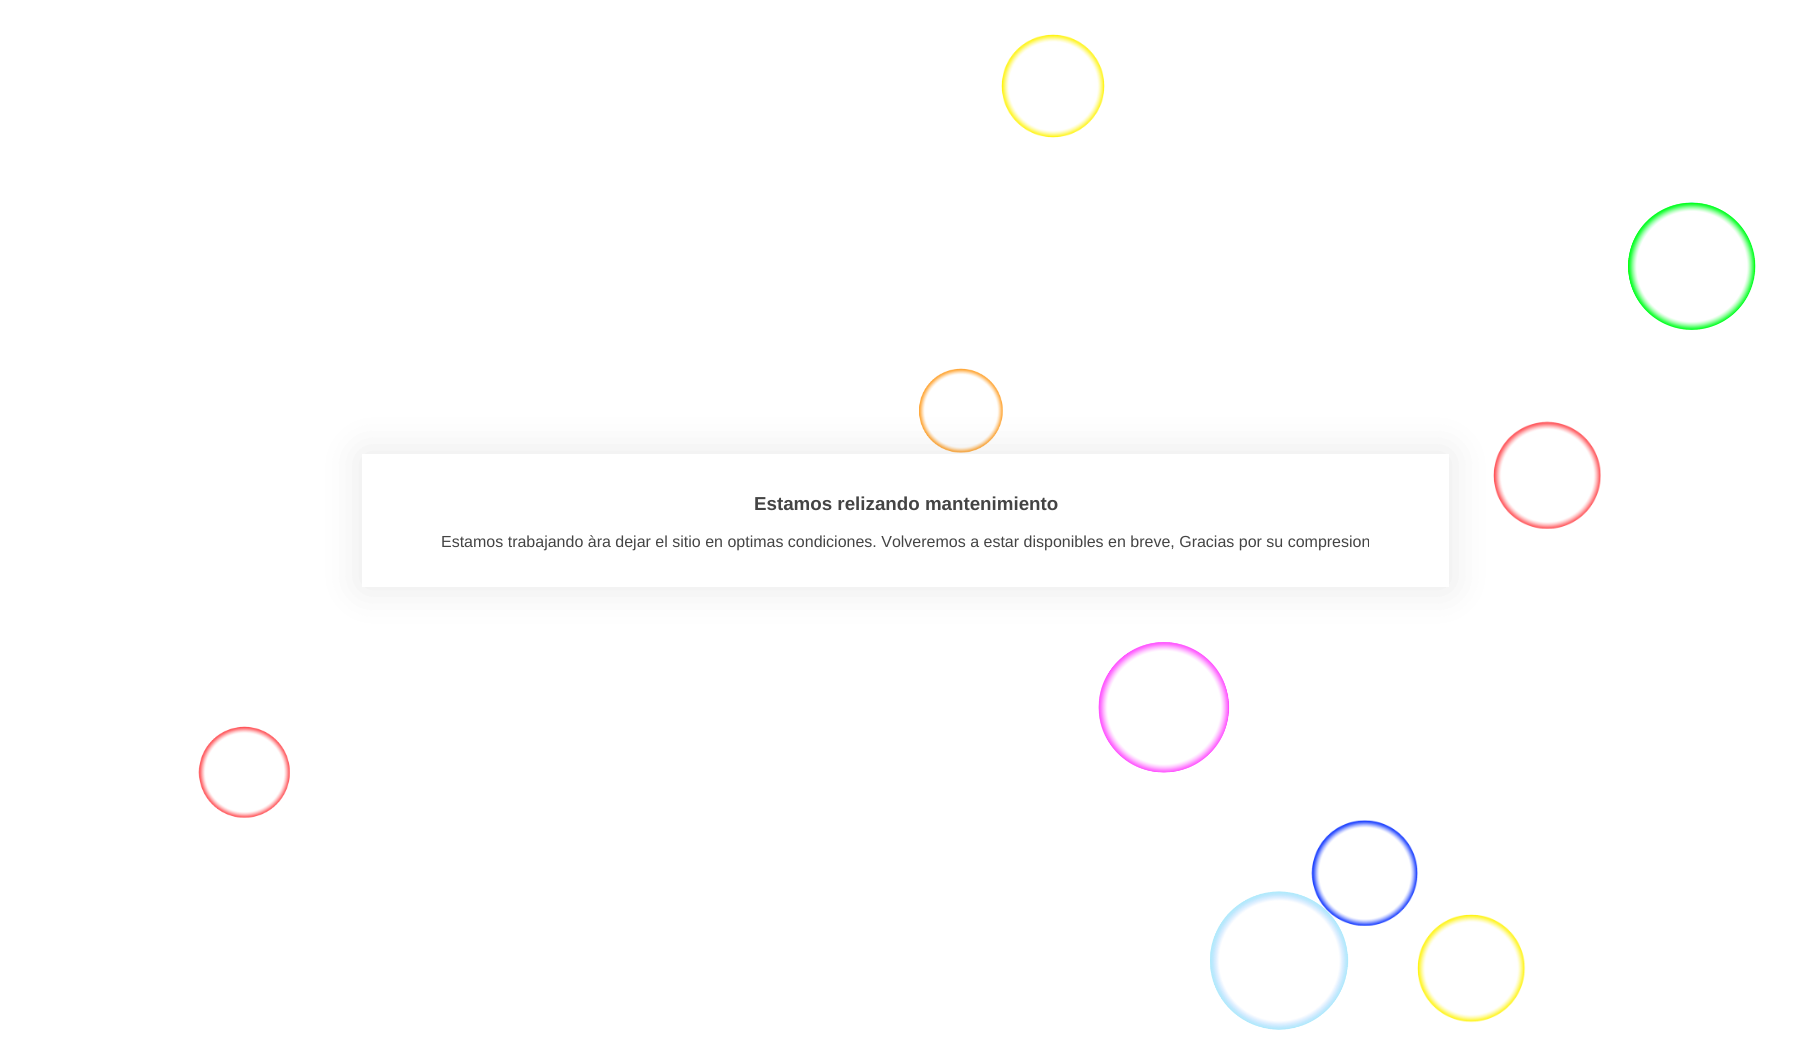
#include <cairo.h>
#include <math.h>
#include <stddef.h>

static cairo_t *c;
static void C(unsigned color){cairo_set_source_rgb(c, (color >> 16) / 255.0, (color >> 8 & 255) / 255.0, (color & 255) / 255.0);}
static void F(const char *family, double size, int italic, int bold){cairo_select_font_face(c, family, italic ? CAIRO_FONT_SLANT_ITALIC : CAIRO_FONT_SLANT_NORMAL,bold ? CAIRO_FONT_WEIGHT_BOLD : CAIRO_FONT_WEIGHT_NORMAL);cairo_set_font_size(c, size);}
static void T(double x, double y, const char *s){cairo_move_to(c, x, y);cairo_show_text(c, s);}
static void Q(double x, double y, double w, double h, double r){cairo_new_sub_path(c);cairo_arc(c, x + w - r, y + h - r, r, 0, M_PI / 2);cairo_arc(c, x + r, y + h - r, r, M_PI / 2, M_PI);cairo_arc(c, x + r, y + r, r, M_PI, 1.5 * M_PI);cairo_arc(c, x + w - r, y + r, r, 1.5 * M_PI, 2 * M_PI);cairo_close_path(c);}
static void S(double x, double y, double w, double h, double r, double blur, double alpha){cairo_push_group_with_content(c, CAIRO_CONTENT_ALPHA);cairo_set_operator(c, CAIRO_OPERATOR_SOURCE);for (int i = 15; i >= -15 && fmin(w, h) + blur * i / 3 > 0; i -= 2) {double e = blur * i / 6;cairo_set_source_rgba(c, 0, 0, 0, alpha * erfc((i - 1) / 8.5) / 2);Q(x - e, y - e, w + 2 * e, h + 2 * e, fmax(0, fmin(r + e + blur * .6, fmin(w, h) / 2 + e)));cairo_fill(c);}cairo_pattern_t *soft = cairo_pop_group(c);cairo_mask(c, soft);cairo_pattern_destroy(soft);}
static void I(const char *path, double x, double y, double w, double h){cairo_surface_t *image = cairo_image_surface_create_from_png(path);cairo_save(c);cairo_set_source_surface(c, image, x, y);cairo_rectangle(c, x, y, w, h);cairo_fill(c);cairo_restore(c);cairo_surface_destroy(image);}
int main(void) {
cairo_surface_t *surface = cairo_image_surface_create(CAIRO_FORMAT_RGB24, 1811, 1041);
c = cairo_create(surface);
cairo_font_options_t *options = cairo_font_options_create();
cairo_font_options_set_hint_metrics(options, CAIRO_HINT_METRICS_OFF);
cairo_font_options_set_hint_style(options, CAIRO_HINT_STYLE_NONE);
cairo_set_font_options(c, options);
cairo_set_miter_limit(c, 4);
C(0xffffff);
cairo_paint(c);
I("1.png",198,34,1558,996);
cairo_save(c);
cairo_set_fill_rule(c,CAIRO_FILL_RULE_EVEN_ODD);
cairo_new_path(c);
cairo_move_to(c,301,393);
cairo_line_to(c,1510,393);
cairo_line_to(c,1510,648);
cairo_line_to(c,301,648);
cairo_close_path(c);
cairo_move_to(c,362,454);
cairo_line_to(c,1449,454);
cairo_line_to(c,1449,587);
cairo_line_to(c,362,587);
cairo_close_path(c);
cairo_clip(c);
C(0x000000);
S(362,454,1087,133,0,20,.1);
cairo_restore(c);
F("Liberation Sans",18.75,0,1);
C(0x444444);
T(754,510,"Estamos relizando mantenimiento");
F("Liberation Sans",16,0,0);
T(441,547,"Estamos trabajando àra dejar el sitio en optimas condiciones. Volveremos a estar disponibles en breve, Gracias por su compresion");
cairo_surface_write_to_png(surface, "o.png");
cairo_font_options_destroy(options);
cairo_destroy(c);
cairo_surface_destroy(surface);
return 0;
}
